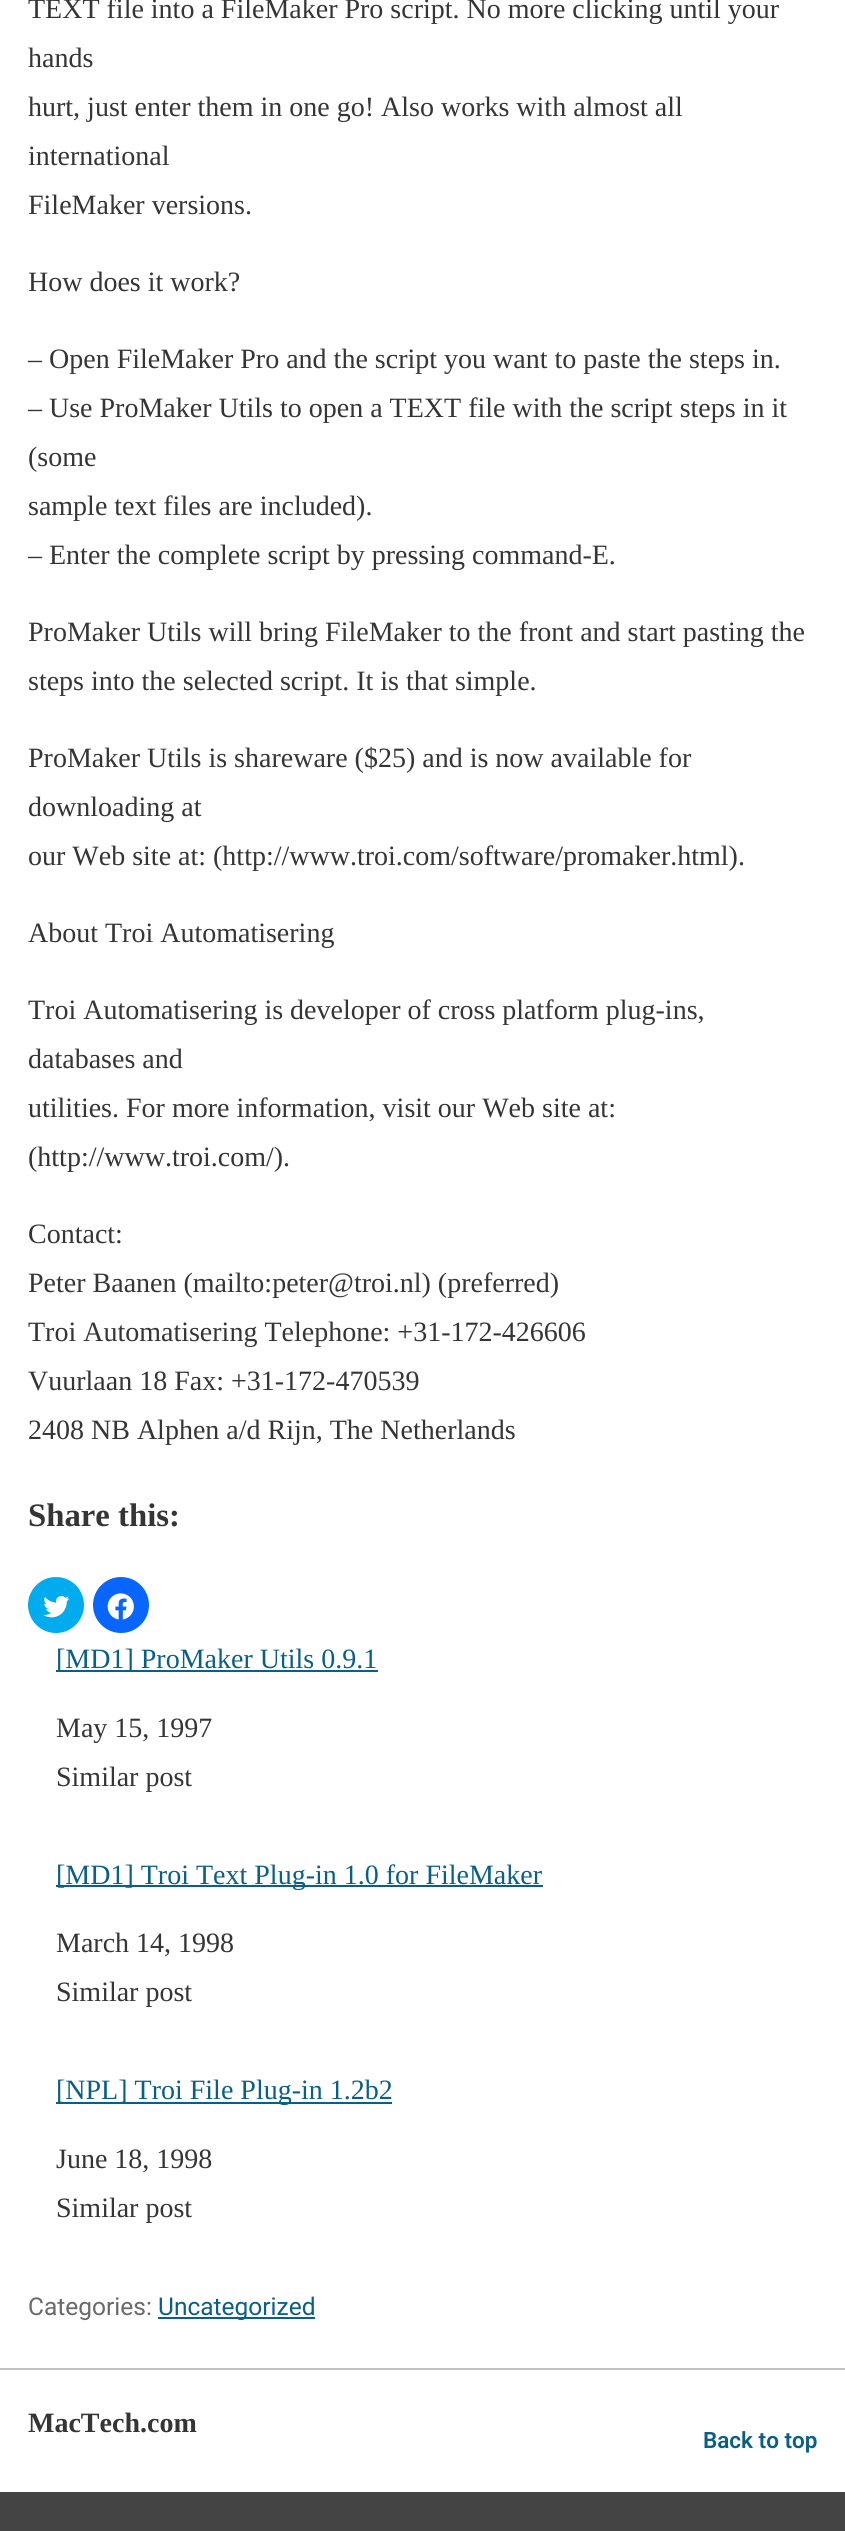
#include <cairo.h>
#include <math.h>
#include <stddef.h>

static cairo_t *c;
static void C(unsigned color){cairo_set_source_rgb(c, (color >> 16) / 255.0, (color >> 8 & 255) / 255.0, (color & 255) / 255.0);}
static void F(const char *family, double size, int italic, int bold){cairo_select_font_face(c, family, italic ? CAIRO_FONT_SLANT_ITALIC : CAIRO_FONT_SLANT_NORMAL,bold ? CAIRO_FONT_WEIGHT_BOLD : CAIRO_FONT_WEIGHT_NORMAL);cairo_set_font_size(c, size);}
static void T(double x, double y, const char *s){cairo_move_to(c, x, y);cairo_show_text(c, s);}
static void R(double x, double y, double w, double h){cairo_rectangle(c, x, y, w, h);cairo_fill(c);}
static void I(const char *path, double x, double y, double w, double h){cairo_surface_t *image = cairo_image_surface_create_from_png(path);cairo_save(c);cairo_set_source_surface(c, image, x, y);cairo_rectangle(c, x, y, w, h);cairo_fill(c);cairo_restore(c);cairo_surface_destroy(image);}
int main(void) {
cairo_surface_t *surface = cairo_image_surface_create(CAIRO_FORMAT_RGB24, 845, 2531);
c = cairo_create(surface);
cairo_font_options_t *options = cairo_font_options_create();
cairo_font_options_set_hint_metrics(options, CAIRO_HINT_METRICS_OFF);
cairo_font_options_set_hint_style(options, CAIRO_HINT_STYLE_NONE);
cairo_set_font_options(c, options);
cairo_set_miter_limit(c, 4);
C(0xffffff);
cairo_paint(c);
F("Liberation Serif",28,0,0);
C(0x353535);
T(28,18,"TEXT file into a FileMaker Pro script. No more clicking until your");
T(28,67,"hands");
T(28,116,"hurt, just enter them in one go! Also works with almost all");
T(28,165,"international");
T(28,214,"FileMaker versions.");
T(28,291,"How does it work?");
T(28,368,"– Open FileMaker Pro and the script you want to paste the steps in.");
T(28,417,"– Use ProMaker Utils to open a TEXT file with the script steps in it");
T(28,466,"(some");
T(28,515,"sample text files are included).");
T(28,564,"– Enter the complete script by pressing command-E.");
T(28,641,"ProMaker Utils will bring FileMaker to the front and start pasting the");
T(28,690,"steps into the selected script. It is that simple.");
T(28,767,"ProMaker Utils is shareware ($25) and is now available for");
T(28,816,"downloading at");
T(28,865,"our Web site at: (http://www.troi.com/software/promaker.html).");
T(28,942,"About Troi Automatisering");
T(28,1019,"Troi Automatisering is developer of cross platform plug-ins,");
T(28,1068,"databases and");
T(28,1117,"utilities. For more information, visit our Web site at:");
T(28,1166,"(http://www.troi.com/).");
T(28,1243,"Contact:");
T(28,1292,"Peter Baanen (mailto:peter@troi.nl) (preferred)");
T(28,1341,"Troi Automatisering Telephone: +31-172-426606");
T(28,1390,"Vuurlaan 18 Fax: +31-172-470539");
T(28,1439,"2408 NB Alphen a/d Rijn, The Netherlands");
F("Liberation Serif",32.75,0,1);
T(28,1526,"Share this:");
C(0x00acee);
cairo_new_path(c);
cairo_arc(c,56,1605,28,0,2 * M_PI);
cairo_fill(c);
I("1.png",43,1596,27,22);
C(0x0866ff);
cairo_arc(c,121,1605,28,0,2 * M_PI);
cairo_fill(c);
I("2.png",107,1593,27,27);
C(0x0a5f85);
R(56,1670,322,2);
F("Liberation Serif",28,0,0);
T(56,1668,"[MD1] ProMaker Utils 0.9.1");
C(0x353535);
T(56,1737,"May 15, 1997");
T(56,1786,"Similar post");
C(0x0a5f85);
R(56,1885,487,2);
T(56,1884,"[MD1] Troi Text Plug-in 1.0 for FileMaker");
C(0x353535);
T(56,1952,"March 14, 1998");
T(56,2001,"Similar post");
C(0x0a5f85);
R(56,2102,336,2);
T(56,2099,"[NPL] Troi File Plug-in 1.2b2");
C(0x353535);
T(56,2168,"June 18, 1998");
T(56,2217,"Similar post");
F("Roboto",24.5,0,0);
C(0x696969);
T(28,2315,"Categories:");
C(0x0a5f85);
R(158,2317,157,2);
T(158,2315,"Uncategorized");
C(0xc2c2c2);
R(0,2368,845,2);
F("Liberation Serif",28,0,1);
C(0x353535);
T(28,2432,"MacTech.com");
F("Roboto SemiBold",22.5,0,0);
C(0x0a5f85);
T(703,2448,"Back to top");
C(0x444444);
R(0,2492,845,39);
cairo_surface_write_to_png(surface, "o.png");
cairo_font_options_destroy(options);
cairo_destroy(c);
cairo_surface_destroy(surface);
return 0;
}
